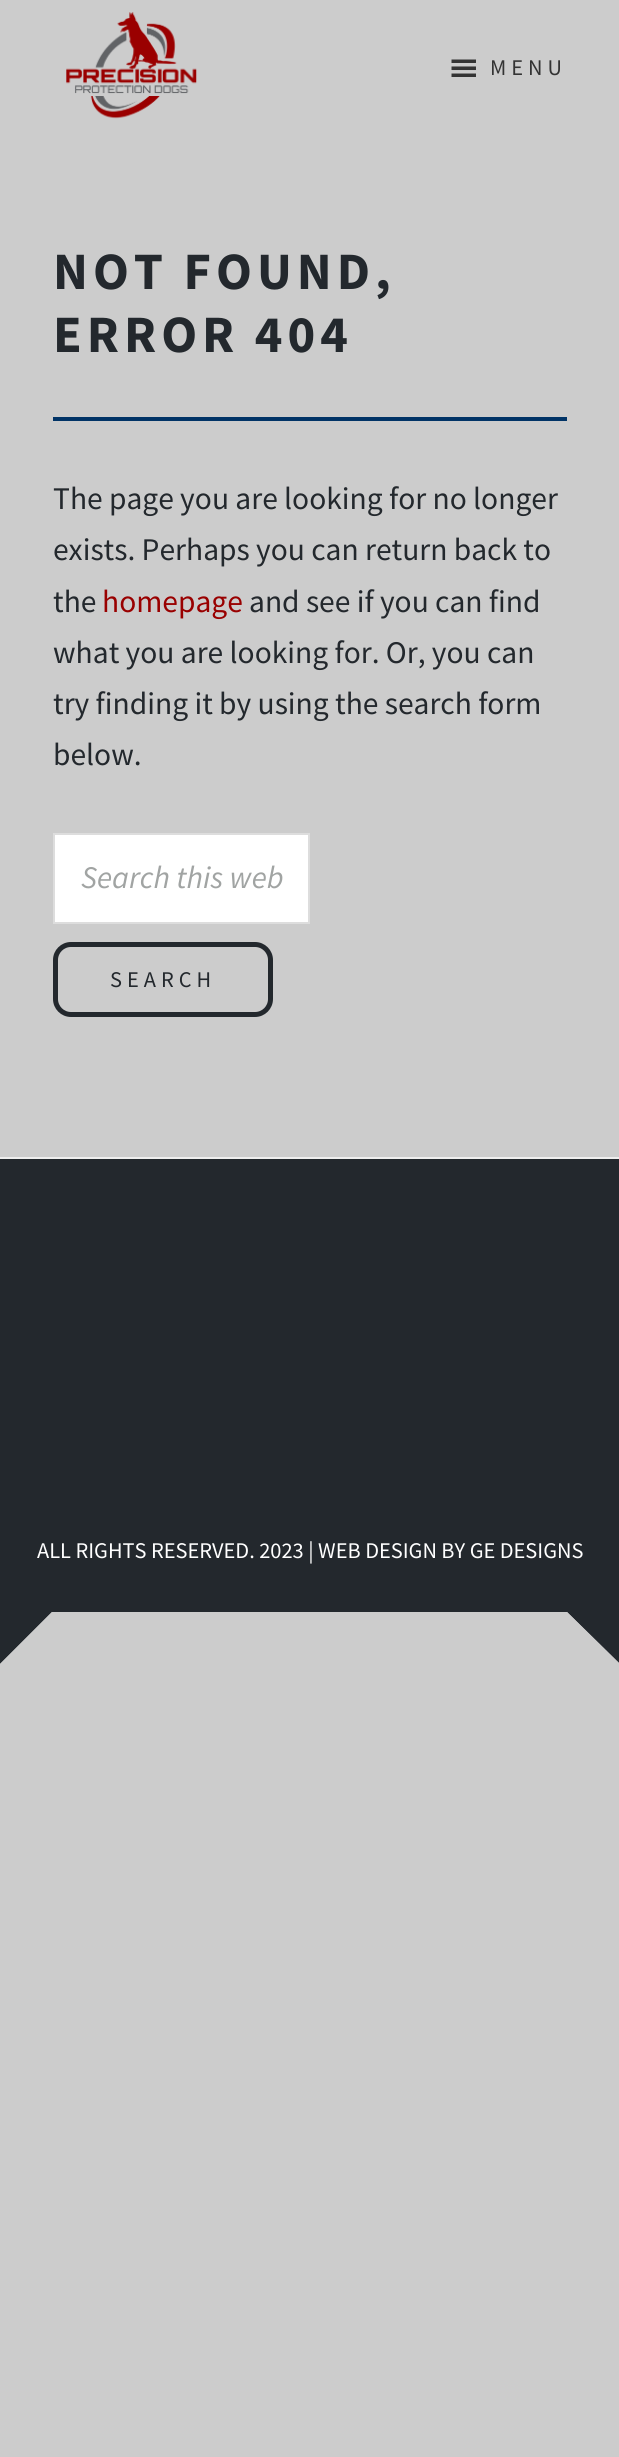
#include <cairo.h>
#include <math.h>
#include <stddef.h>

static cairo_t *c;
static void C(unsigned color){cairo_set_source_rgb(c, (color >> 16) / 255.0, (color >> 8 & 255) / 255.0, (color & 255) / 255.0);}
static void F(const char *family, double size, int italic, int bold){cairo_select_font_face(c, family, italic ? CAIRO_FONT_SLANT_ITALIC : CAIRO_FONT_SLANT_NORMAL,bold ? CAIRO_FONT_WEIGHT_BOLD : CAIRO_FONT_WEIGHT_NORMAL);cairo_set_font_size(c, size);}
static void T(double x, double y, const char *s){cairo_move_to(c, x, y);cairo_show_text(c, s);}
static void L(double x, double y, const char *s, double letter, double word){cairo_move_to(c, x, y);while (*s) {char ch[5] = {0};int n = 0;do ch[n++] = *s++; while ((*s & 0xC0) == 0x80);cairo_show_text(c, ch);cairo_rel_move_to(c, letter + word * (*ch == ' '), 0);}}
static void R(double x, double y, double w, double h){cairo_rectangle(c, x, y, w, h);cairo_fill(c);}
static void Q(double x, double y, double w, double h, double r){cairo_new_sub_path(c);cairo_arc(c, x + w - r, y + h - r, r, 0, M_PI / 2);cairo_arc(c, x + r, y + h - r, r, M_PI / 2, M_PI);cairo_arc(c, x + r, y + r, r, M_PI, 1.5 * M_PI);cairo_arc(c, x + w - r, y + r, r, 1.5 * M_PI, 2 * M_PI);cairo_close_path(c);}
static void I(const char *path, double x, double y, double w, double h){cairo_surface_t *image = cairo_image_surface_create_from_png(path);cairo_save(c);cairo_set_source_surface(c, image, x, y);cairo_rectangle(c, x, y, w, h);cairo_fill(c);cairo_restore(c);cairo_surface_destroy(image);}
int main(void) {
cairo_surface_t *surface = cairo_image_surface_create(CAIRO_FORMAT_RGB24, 619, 2457);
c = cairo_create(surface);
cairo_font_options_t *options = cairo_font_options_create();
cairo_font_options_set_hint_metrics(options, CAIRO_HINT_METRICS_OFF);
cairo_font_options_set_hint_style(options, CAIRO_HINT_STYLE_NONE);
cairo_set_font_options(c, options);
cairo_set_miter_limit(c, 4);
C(0xcccccc);
cairo_paint(c);
I("1.png",66,12,131,107);
I("2.png",451,59,25,18);
F("Source Sans Pro",22.4,0,0);
C(0x333333);
L(490,75,"MENU",5,0);
C(0x003366);
R(53,417,514,4);
F("Source Sans Pro",52.5,0,1);
C(0x23282d);
L(53,289,"NOT FOUND,",5,0);
L(53,352,"ERROR 404",5,0);
F("Source Sans Pro",31.5,0,0);
T(53,509,"The page you are looking for no longer");
T(53,560,"exists. Perhaps you can return back to");
T(53,612,"the");
C(0x990000);
T(102,612,"homepage");
C(0x23282d);
T(249,612,"and see if you can find");
T(53,663,"what you are looking for. Or, you can");
T(53,714,"try finding it by using the search form");
T(53,765,"below.");
C(0xffffff);
cairo_rectangle(c,54,834,255,89);
cairo_fill_preserve(c);
C(0xdddddd);
cairo_stroke(c);
F("Source Sans Pro",31.5,1,0);
C(0xa1a4a3);
T(81,888,"Search this web");
Q(55.5,944.5,215,70,15.5);
C(0x23282d);
cairo_set_line_width(c,5);
cairo_stroke(c);
F("Source Sans Pro",22.4,0,0);
L(110,987,"SEARCH",5,0);
R(0,1159,619,453);
C(0xeeeeee);
R(0,1157,619,2);
C(0xffffff);
T(37,1558,"ALL RIGHTS RESERVED. 2023 | WEB DESIGN BY GE DESIGNS");
C(0x23282d);
cairo_new_path(c);
cairo_move_to(c,0,1612);
cairo_line_to(c,52,1612);
cairo_line_to(c,0,1664);
cairo_close_path(c);
cairo_fill(c);
C(0xcccccc);
cairo_new_path(c);
cairo_move_to(c,52,1612);
cairo_line_to(c,52,1664);
cairo_line_to(c,0,1664);
cairo_close_path(c);
cairo_fill(c);
C(0x23282d);
cairo_new_path(c);
cairo_move_to(c,567,1612);
cairo_line_to(c,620,1612);
cairo_line_to(c,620,1664);
cairo_close_path(c);
cairo_fill(c);
C(0xcccccc);
cairo_new_path(c);
cairo_move_to(c,567,1664);
cairo_line_to(c,567,1612);
cairo_line_to(c,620,1664);
cairo_close_path(c);
cairo_fill(c);
cairo_surface_write_to_png(surface, "o.png");
cairo_font_options_destroy(options);
cairo_destroy(c);
cairo_surface_destroy(surface);
return 0;
}
